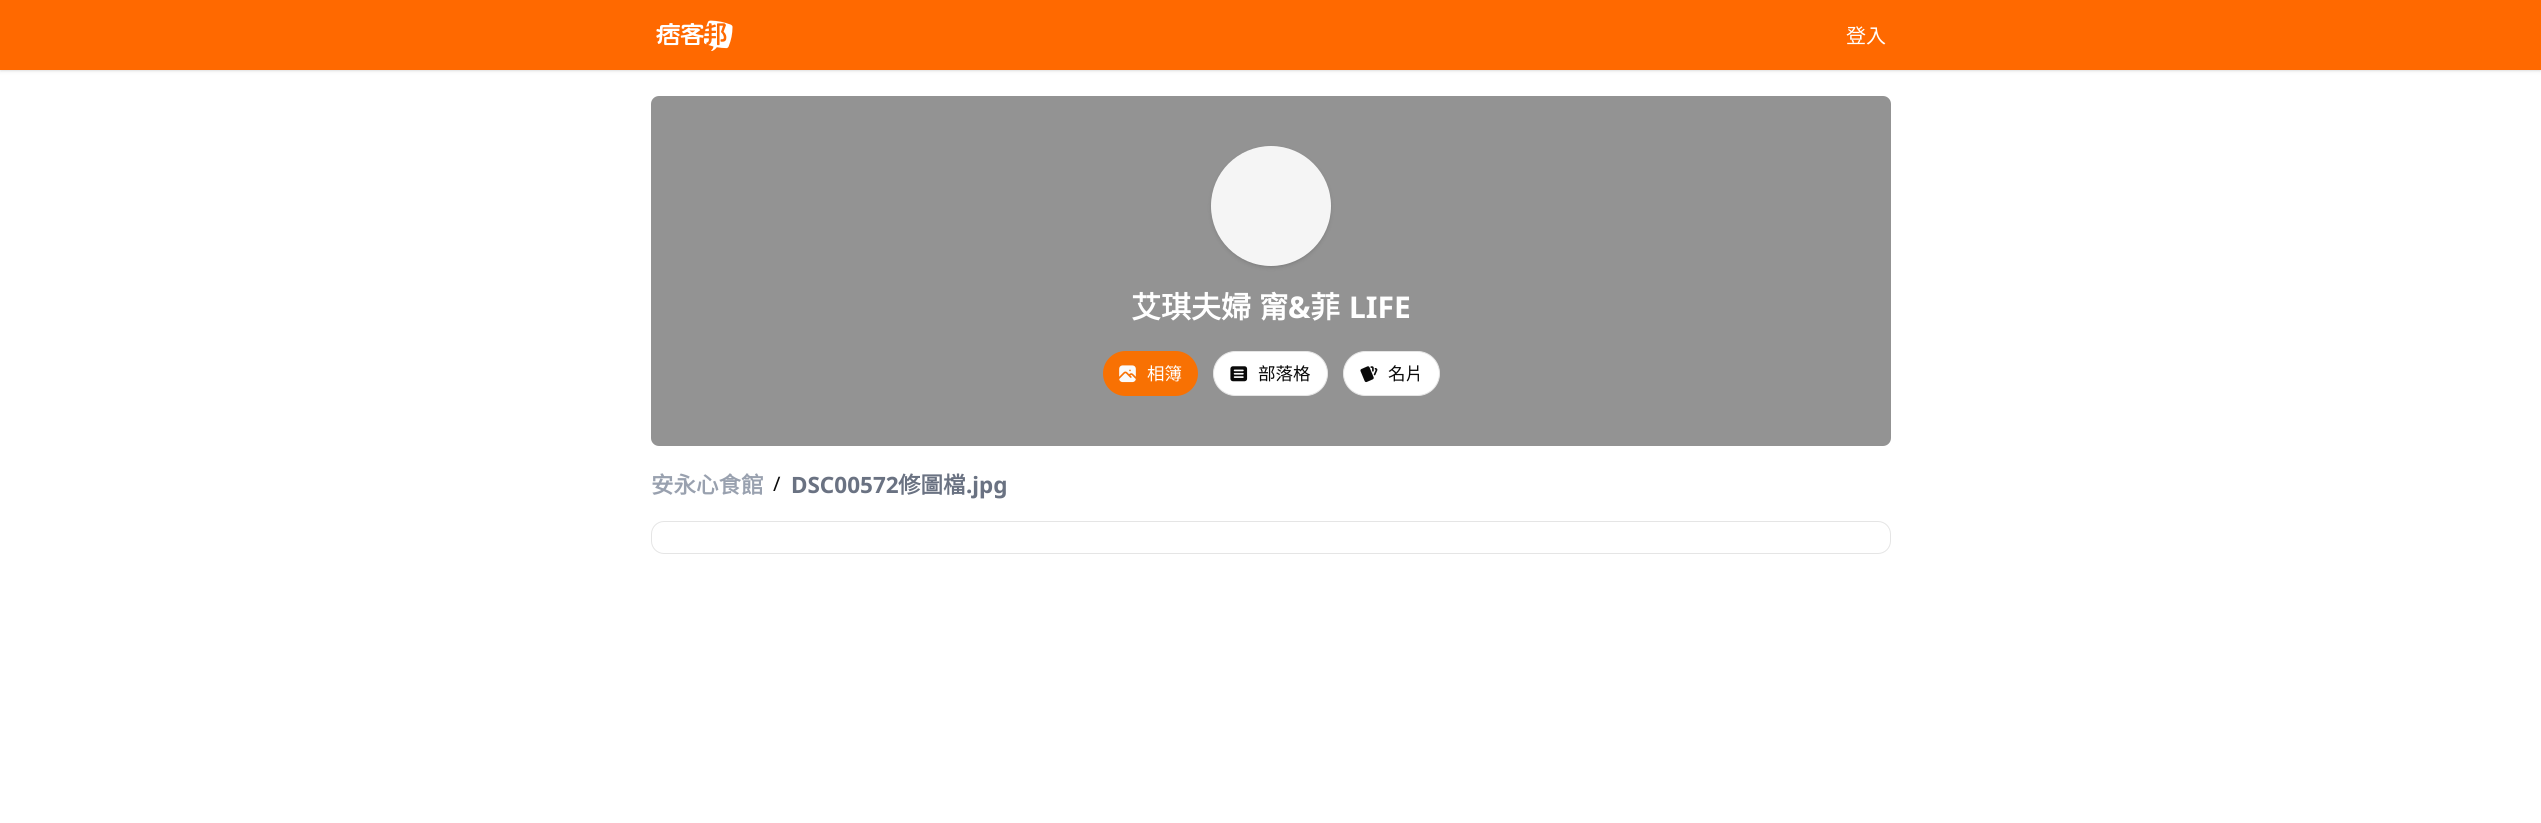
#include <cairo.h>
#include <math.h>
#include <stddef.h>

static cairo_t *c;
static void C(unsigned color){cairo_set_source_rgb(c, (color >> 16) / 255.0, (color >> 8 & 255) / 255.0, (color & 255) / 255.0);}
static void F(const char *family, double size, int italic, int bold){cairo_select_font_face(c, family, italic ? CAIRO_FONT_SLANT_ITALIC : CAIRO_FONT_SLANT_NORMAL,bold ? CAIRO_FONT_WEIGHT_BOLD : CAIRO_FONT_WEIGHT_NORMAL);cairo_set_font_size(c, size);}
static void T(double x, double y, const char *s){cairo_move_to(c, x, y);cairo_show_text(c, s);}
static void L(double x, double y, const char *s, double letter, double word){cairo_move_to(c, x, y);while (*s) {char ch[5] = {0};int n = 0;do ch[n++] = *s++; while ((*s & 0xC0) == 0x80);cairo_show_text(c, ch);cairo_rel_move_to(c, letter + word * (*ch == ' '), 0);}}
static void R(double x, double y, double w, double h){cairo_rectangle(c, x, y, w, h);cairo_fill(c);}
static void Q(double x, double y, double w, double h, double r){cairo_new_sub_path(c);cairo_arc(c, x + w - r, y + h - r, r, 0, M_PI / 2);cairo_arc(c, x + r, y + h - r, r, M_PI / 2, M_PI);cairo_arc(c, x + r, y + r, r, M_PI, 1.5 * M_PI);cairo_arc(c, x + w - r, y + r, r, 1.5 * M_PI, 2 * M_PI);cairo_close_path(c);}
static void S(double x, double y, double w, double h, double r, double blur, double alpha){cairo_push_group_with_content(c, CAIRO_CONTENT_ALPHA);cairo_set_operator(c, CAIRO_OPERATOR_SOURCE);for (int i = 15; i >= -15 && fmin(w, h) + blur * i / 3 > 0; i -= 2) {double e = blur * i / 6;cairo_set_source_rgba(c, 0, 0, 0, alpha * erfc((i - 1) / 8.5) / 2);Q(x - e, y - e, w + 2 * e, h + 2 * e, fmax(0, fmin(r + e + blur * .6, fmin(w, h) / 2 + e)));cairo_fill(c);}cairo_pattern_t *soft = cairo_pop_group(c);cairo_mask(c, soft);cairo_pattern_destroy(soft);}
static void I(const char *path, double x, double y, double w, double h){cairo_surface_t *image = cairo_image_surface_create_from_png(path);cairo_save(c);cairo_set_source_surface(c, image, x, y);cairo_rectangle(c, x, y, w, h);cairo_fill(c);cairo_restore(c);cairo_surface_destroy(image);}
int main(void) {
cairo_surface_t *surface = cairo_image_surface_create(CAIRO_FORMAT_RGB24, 2541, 823);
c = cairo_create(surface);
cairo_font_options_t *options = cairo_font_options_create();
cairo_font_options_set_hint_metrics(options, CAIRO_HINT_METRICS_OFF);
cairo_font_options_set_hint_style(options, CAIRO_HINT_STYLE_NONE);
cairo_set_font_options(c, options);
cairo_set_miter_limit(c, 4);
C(0xffffff);
cairo_paint(c);
C(0x000000);
S(1,3,2539,67,0,1,.1);
S(0,1,2541,70,0,2,.1);
C(0xff6900);
R(0,0,2541,70);
I("1.png",656,20,77,31);
F("Noto Sans CJK TC",20,0,0);
C(0xffffff);
T(1846,43,"登入");
C(0xf5f5f5);
Q(651,96,1240,350,8);
cairo_fill(c);
cairo_set_source_rgba(c,0,0,0,0.4);
Q(651,96,1240,350,8);
cairo_fill(c);
C(0x000000);
S(1213,149,117,117,58.5,1,.1);
S(1211,148,120,120,60,2,.1);
C(0xf5f5f5);
cairo_arc(c,1271,206,60,0,2 * M_PI);
cairo_fill(c);
F("Noto Sans CJK TC",30,0,1);
C(0xffffff);
L(1131,318,"艾琪夫婦 甯",0,1);
F("Noto Sans",30,0,1);
T(1288,318,"&");
F("Noto Sans CJK TC",30,0,1);
T(1310,318,"菲");
F("Noto Sans",30,0,1);
T(1349,318,"LIFE");
C(0xf87103);
Q(1103,351,95,45,22.5);
cairo_fill(c);
I("2.png",1119,365,17,18);
F("Noto Sans CJK TC",17.5,0,0);
C(0xffffff);
T(1147,380,"相簿");
Q(1213.5,351.5,114,44,22);
cairo_fill_preserve(c);
C(0xe5e5e5);
cairo_set_line_width(c,1);
cairo_stroke(c);
I("3.png",1230,366,18,16);
C(0x0a0a0a);
T(1258,380,"部落格");
C(0xffffff);
Q(1343.5,351.5,96,44,22);
cairo_fill_preserve(c);
C(0xe5e5e5);
cairo_stroke(c);
I("4.png",1360,366,18,17);
C(0x0a0a0a);
T(1388,380,"名片");
F("Noto Sans CJK TC",22.5,0,1);
C(0x99a1af);
T(651,493,"安永心食館");
F("Noto Sans",20,0,0);
C(0x0a0a0a);
T(773,491,"/");
F("Noto Sans",22.5,0,1);
C(0x6a7282);
T(791,493,"DSC00572");
F("Noto Sans CJK TC",22.5,0,1);
T(898,493,"修圖檔");
F("Noto Sans",22.5,0,1);
T(966,493,".jpg");
Q(651.5,521.5,1239,32,12.5);
C(0xe5e5e5);
cairo_stroke(c);
cairo_surface_write_to_png(surface, "o.png");
cairo_font_options_destroy(options);
cairo_destroy(c);
cairo_surface_destroy(surface);
return 0;
}
